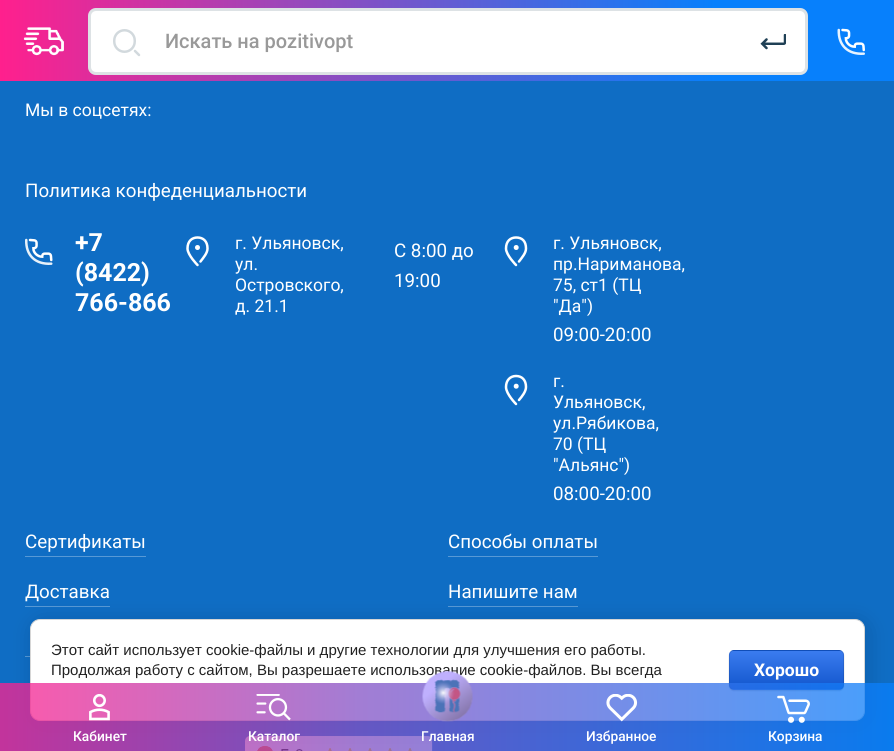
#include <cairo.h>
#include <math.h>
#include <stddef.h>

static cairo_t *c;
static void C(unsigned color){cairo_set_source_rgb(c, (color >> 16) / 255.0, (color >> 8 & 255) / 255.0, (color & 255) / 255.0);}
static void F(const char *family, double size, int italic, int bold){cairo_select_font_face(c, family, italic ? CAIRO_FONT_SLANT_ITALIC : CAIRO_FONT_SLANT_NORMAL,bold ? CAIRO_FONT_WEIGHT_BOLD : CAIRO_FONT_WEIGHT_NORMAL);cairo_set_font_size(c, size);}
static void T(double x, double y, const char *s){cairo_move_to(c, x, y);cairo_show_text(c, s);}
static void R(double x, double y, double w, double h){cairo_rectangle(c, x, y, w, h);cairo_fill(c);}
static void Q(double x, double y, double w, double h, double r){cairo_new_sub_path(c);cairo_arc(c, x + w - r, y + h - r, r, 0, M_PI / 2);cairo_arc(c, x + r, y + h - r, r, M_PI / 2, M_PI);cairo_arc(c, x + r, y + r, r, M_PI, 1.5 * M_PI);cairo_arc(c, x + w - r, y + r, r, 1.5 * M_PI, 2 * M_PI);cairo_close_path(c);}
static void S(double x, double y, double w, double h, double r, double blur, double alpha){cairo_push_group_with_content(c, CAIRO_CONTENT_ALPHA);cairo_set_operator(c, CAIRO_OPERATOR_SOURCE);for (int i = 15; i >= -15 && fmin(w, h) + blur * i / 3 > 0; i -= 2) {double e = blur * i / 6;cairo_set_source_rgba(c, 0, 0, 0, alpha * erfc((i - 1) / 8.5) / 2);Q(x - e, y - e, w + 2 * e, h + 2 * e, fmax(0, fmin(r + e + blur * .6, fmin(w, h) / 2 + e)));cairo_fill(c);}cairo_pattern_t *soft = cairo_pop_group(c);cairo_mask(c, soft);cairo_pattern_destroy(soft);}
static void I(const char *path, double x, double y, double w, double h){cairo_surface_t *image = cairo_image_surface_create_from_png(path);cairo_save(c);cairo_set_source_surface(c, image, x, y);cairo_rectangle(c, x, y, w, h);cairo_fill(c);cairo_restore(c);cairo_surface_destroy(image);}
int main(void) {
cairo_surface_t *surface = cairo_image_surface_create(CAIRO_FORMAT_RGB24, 894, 751);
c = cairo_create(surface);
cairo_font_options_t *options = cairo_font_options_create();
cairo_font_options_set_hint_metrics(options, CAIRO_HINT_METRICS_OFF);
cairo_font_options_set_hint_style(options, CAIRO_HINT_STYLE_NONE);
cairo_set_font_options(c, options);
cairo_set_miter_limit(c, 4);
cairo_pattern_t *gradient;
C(0x0f6dc4);
cairo_paint(c);
gradient = cairo_pattern_create_linear(0,41,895,41);
cairo_pattern_add_color_stop_rgba(gradient,0,1,0.125,0.553,1);
cairo_pattern_add_color_stop_rgba(gradient,.8,0.027,0.502,0.988,1);
cairo_set_source(c,gradient);
cairo_pattern_destroy(gradient);
R(0,0,894,81);
I("1.png",23,27,41,29);
C(0xffffff);
Q(88,8,720,67,8);
cairo_fill(c);
Q(89.5,9.5,717,64,6.5);
cairo_set_source_rgba(c,0.122,0.251,0.333,0.15);
cairo_set_line_width(c,3);
cairo_stroke(c);
Q(114.25,30.25,20.5,21.5,10.25);
C(0xd2d9dd);
cairo_set_line_width(c,2.5);
cairo_stroke(c);
cairo_new_path(c);
cairo_move_to(c,135,51);
cairo_line_to(c,139,55);
cairo_set_line_cap(c,CAIRO_LINE_CAP_ROUND);
cairo_stroke(c);
F("Roboto Medium",20,0,0);
C(0x999999);
T(165,48,"Искать на pozitivopt");
I("2.png",760,34,26,16);
I("3.png",837,28,28,27);
F("Roboto",17.5,0,0);
C(0xffffff);
T(25,116,"Мы в соцсетях:");
F("Roboto",18.75,0,0);
T(25,197,"Политика конфеденциальности");
I("4.png",25,238,28,27);
F("Roboto",25,0,1);
T(75,251,"+7");
T(75,281,"(8422)");
T(75,311,"766-866");
cairo_new_path(c);
cairo_move_to(c,197.5,265);
cairo_curve_to(c,197.5,265,187.5,255,187.5,248.5);
cairo_curve_to(c,187.5,241,192,237.5,197.5,237.5);
cairo_curve_to(c,203,237.5,207.5,241,207.5,248.5);
cairo_curve_to(c,207.5,253,203.5,257.5,200.5,261.5);
cairo_stroke(c);
cairo_arc(c,197.5,247.5,2.5,0,2 * M_PI);
cairo_fill(c);
F("Roboto",17.5,0,0);
T(235,249,"г. Ульяновск,");
T(235,270,"ул.");
T(235,291,"Островского,");
T(235,312,"д. 21.1");
F("Roboto",18.75,0,0);
T(394,257,"С 8:00 до");
T(394,287,"19:00");
cairo_new_path(c);
cairo_move_to(c,516,265);
cairo_curve_to(c,516,265,506,255,506,248.5);
cairo_curve_to(c,506,241,510.5,237.5,516,237.5);
cairo_curve_to(c,522,237.5,526,241,526,248.5);
cairo_curve_to(c,526,253,522,257.5,519,261.5);
cairo_stroke(c);
cairo_arc(c,516.2,247.5,2.5,0,2 * M_PI);
cairo_fill(c);
F("Roboto",17.5,0,0);
T(553,249,"г. Ульяновск,");
T(553,270,"пр.Нариманова,");
T(553,291,"75, ст1 (ТЦ");
T(553,312,"\"Да\")");
F("Roboto",18.75,0,0);
T(553,341,"09:00-20:00");
cairo_new_path(c);
cairo_move_to(c,516,404);
cairo_curve_to(c,516,404,506,394,506,387);
cairo_curve_to(c,506,380,510.5,376,516,376);
cairo_curve_to(c,522,376,526,380,526,387);
cairo_curve_to(c,526,391.5,522,396.5,519,400);
cairo_stroke(c);
cairo_arc(c,516.2,386.2,2.5,0,2 * M_PI);
cairo_fill(c);
F("Roboto",17.5,0,0);
T(553,387,"г.");
T(553,408,"Ульяновск,");
T(553,429,"ул.Рябикова,");
T(553,450,"70 (ТЦ");
T(553,471,"\"Альянс\")");
F("Roboto",18.75,0,0);
T(553,500,"08:00-20:00");
T(25,548,"Сертификаты");
C(0x5799d6);
R(25,556,121,1);
C(0xffffff);
T(448,548,"Способы оплаты");
C(0x5799d6);
R(448,556,150,1);
C(0xffffff);
T(25,598,"Доставка");
C(0x5799d6);
R(25,606,85,1);
C(0xffffff);
T(448,598,"Напишите нам");
C(0x5799d6);
R(448,606,130,1);
R(25,656,5,1);
I("5.png",245,736,188,15);
C(0x000000);
S(33,621,835,103,10,11,.14);
C(0xffffff);
Q(30.5,619.5,834,101,9.5);
cairo_fill_preserve(c);
C(0xd6d6d6);
cairo_set_line_width(c,1);
cairo_set_line_cap(c,CAIRO_LINE_CAP_BUTT);
cairo_stroke(c);
F("Liberation Sans",15,0,0);
C(0x212121);
T(51,655,"Этот сайт использует cookie-файлы и другие технологии для улучшения его работы.");
T(51,675,"Продолжая работу с сайтом, Вы разрешаете использование cookie-файлов. Вы всегда");
C(0x000000);
S(729,651,115,40,5,.5,.2);
cairo_save(c);
Q(729,650,115,40,5);
cairo_clip(c);
gradient = cairo_pattern_create_linear(786,614,786,651);
cairo_pattern_add_color_stop_rgba(gradient,0,0.231,0.486,0.937,1);
cairo_pattern_add_color_stop_rgba(gradient,1,0.067,0.333,0.8,1);
cairo_set_source(c,gradient);
cairo_pattern_destroy(gradient);
R(729,650,115,1);
gradient = cairo_pattern_create_linear(786,651,786,689);
cairo_pattern_add_color_stop_rgba(gradient,0,0.231,0.486,0.937,1);
cairo_pattern_add_color_stop_rgba(gradient,1,0.067,0.333,0.8,1);
cairo_set_source(c,gradient);
cairo_pattern_destroy(gradient);
R(729,651,115,38);
gradient = cairo_pattern_create_linear(786,689,786,726);
cairo_pattern_add_color_stop_rgba(gradient,0,0.231,0.486,0.937,1);
cairo_pattern_add_color_stop_rgba(gradient,1,0.067,0.333,0.8,1);
cairo_set_source(c,gradient);
cairo_pattern_destroy(gradient);
R(729,689,115,1);
cairo_restore(c);
Q(729.5,650.5,114,39,4.5);
cairo_set_source_rgba(c,0,0,0,0.1);
cairo_stroke(c);
F("Roboto",17.5,0,1);
C(0xffffff);
T(754,676,"Хорошо");
gradient = cairo_pattern_create_linear(0,717,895,717);
cairo_pattern_add_color_stop_rgba(gradient,0,0.996,0.129,0.557,.75);
cairo_pattern_add_color_stop_rgba(gradient,.4,0.514,0.318,0.773,.75);
cairo_pattern_add_color_stop_rgba(gradient,1,0.027,0.502,0.988,.75);
cairo_set_source(c,gradient);
cairo_pattern_destroy(gradient);
R(0,683,894,68);
I("6.png",89,694,21,27);
F("Roboto Medium",13.75,0,0);
C(0xffffff);
T(73,741,"Кабинет");
I("7.png",256,694,35,27);
T(248,741,"Каталог");
I("8.png",422,671,51,51);
T(421,741,"Главная");
I("9.png",606,694,32,28);
T(586,741,"Избранное");
I("10.png",777,695,33,28);
T(768,741,"Корзина");
cairo_surface_write_to_png(surface, "o.png");
cairo_font_options_destroy(options);
cairo_destroy(c);
cairo_surface_destroy(surface);
return 0;
}
